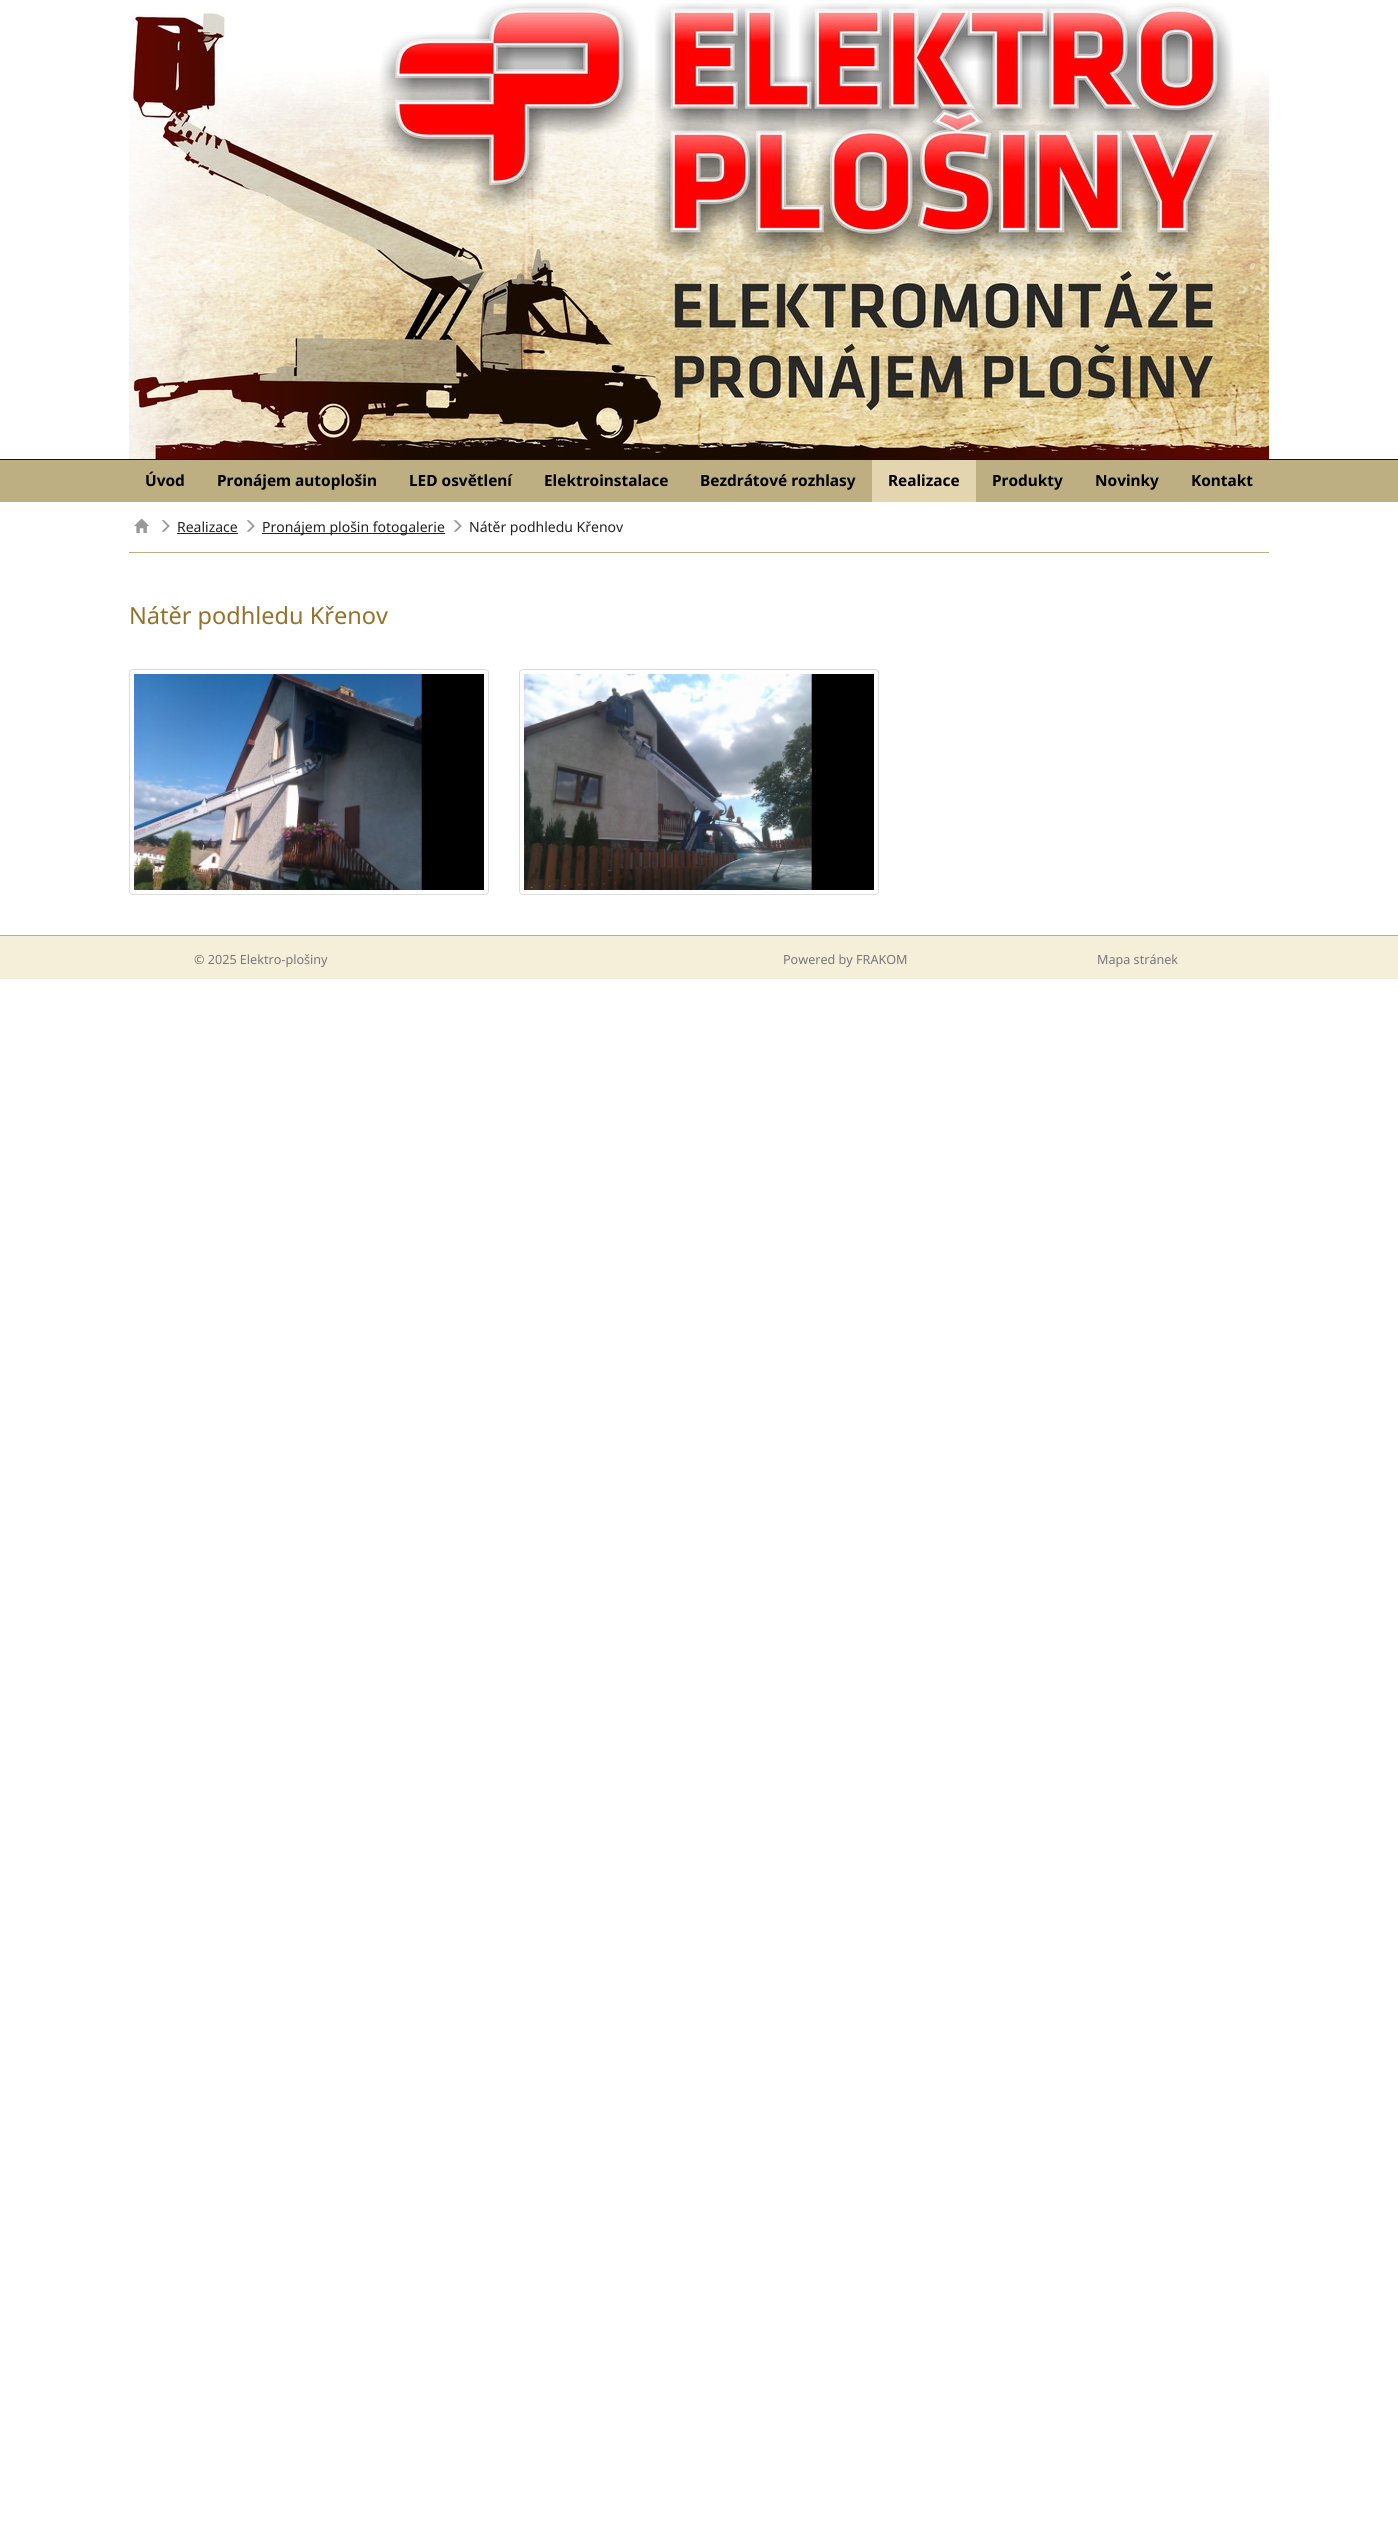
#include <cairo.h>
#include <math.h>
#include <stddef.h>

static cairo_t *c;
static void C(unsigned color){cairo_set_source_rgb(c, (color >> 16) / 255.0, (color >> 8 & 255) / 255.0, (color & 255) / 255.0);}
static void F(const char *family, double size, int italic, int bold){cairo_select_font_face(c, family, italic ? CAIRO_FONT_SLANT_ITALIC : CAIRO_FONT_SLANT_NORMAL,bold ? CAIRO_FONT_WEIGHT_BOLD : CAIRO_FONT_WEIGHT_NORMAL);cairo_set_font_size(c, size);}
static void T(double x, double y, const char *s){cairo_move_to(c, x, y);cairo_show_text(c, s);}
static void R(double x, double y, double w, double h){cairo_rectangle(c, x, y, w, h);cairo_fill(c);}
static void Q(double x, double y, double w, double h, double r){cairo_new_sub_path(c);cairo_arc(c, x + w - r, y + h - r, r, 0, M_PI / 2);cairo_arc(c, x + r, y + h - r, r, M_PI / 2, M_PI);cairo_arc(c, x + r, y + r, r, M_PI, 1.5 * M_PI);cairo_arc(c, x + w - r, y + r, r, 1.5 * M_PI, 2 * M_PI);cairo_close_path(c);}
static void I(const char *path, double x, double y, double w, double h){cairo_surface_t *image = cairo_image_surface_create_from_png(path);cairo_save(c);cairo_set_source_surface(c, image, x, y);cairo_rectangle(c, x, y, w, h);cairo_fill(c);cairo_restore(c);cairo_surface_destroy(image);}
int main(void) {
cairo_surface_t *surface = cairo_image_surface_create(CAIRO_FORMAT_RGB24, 1398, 2524);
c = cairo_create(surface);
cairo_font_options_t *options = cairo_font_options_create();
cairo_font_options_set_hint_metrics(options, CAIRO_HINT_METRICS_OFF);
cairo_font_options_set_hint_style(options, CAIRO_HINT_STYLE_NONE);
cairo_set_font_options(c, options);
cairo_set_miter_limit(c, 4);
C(0xffffff);
cairo_paint(c);
I("1.png",129,0,1140,459);
C(0xbdaf81);
R(0,460,1398,42);
C(0x260900);
R(0,459,1398,1);
F("Noto Sans",15.4,0,1);
C(0x000000);
T(145,486,"Úvod");
T(217,486,"Pronájem autoplošin");
T(409,486,"LED osvětlení");
T(544,486,"Elektroinstalace");
T(700,486,"Bezdrátové rozhlasy");
C(0xe3d5b0);
R(872,460,104,42);
C(0x000000);
T(888,486,"Realizace");
T(992,486,"Produkty");
T(1095,486,"Novinky");
T(1191,486,"Kontakt");
I("2.png",134,518,15,15);
I("3.png",161,520,9,12);
F("Noto Sans",14,0,0);
C(0x222222);
T(177,532,"Realizace");
R(177,533,61,1);
I("3.png",246,520,9,12);
R(262,533,183,1);
T(262,532,"Pronájem plošin fotogalerie");
I("3.png",453,520,9,12);
T(469,532,"Nátěr podhledu Křenov");
C(0xbdae81);
R(129,552,1140,1);
F("Noto Sans",23.5,0,0);
C(0x94722b);
T(129,624,"Nátěr podhledu Křenov");
Q(129.5,669.5,359,225,3.5);
C(0xdddddd);
cairo_set_line_width(c,1);
cairo_stroke(c);
I("4.png",134,674,350,216);
Q(519.5,669.5,359,225,3.5);
cairo_stroke(c);
I("5.png",524,674,350,216);
C(0xf5eed8);
R(0,936,1398,43);
C(0xbdaf81);
R(0,935,1398,1);
F("Noto Sans",12.6,0,0);
C(0x777777);
T(194,964,"© 2025 Elektro-plošiny");
T(783,964,"Powered by FRAKOM");
T(1097,964,"Mapa stránek");
cairo_surface_write_to_png(surface, "o.png");
cairo_font_options_destroy(options);
cairo_destroy(c);
cairo_surface_destroy(surface);
return 0;
}
